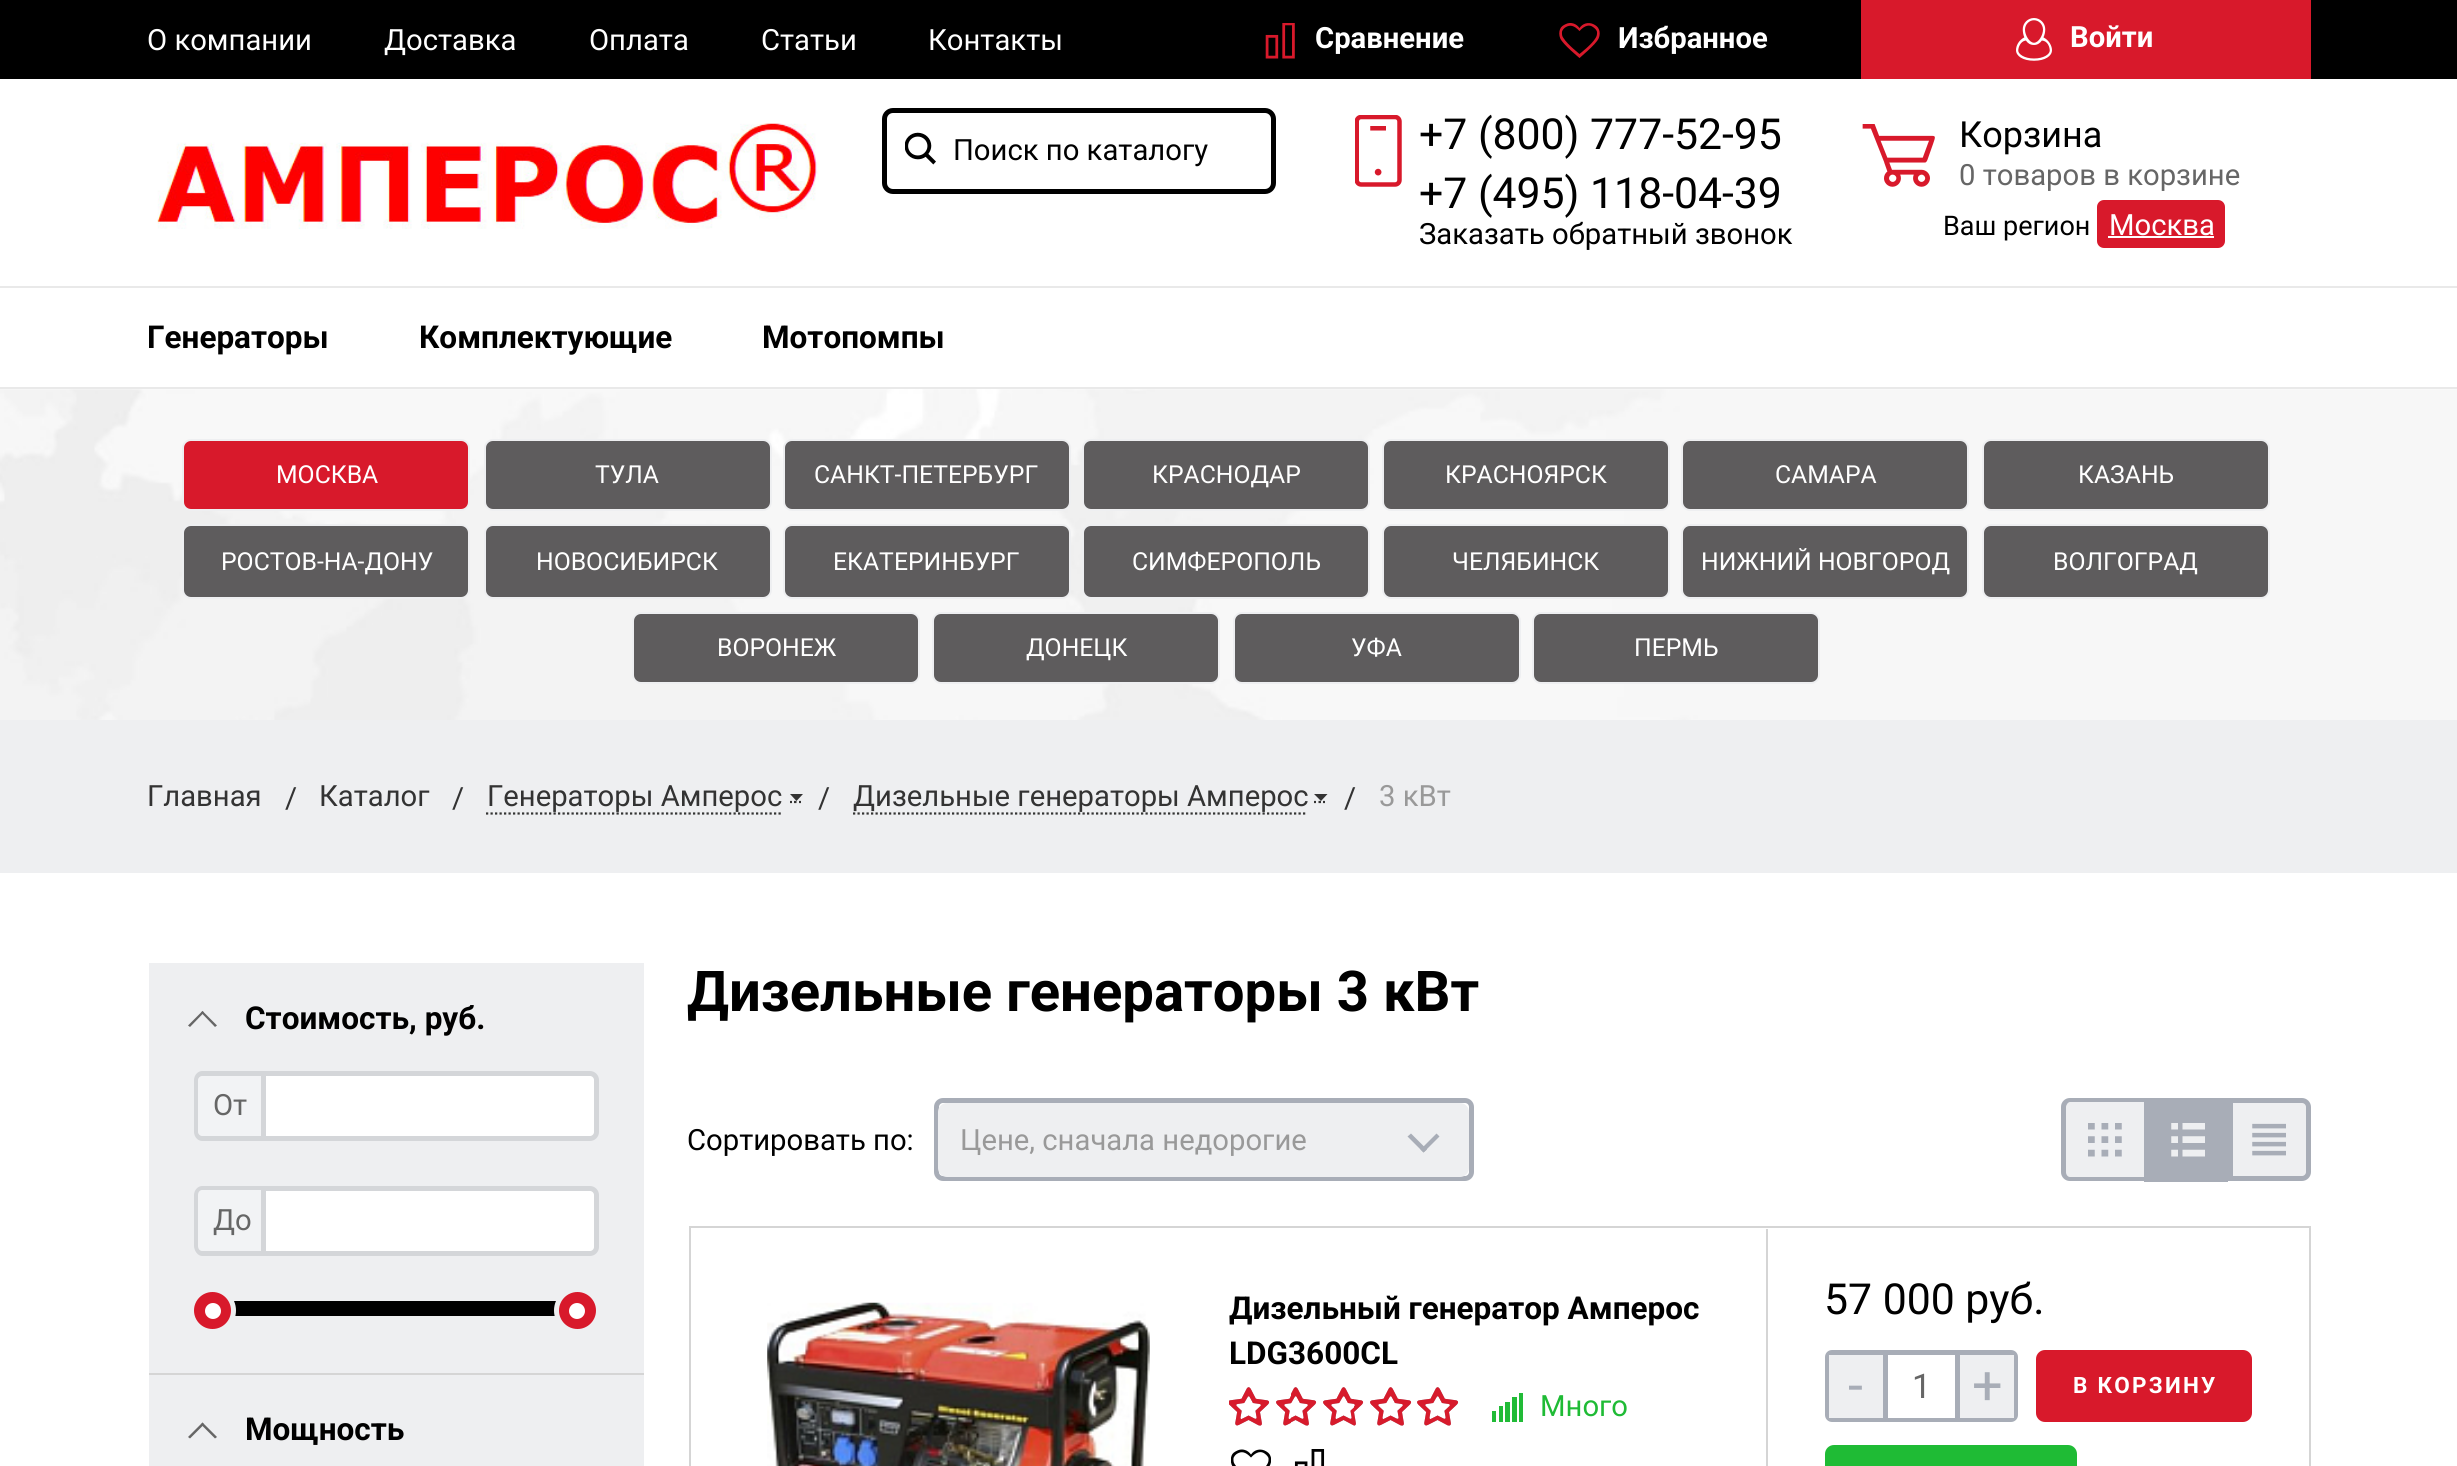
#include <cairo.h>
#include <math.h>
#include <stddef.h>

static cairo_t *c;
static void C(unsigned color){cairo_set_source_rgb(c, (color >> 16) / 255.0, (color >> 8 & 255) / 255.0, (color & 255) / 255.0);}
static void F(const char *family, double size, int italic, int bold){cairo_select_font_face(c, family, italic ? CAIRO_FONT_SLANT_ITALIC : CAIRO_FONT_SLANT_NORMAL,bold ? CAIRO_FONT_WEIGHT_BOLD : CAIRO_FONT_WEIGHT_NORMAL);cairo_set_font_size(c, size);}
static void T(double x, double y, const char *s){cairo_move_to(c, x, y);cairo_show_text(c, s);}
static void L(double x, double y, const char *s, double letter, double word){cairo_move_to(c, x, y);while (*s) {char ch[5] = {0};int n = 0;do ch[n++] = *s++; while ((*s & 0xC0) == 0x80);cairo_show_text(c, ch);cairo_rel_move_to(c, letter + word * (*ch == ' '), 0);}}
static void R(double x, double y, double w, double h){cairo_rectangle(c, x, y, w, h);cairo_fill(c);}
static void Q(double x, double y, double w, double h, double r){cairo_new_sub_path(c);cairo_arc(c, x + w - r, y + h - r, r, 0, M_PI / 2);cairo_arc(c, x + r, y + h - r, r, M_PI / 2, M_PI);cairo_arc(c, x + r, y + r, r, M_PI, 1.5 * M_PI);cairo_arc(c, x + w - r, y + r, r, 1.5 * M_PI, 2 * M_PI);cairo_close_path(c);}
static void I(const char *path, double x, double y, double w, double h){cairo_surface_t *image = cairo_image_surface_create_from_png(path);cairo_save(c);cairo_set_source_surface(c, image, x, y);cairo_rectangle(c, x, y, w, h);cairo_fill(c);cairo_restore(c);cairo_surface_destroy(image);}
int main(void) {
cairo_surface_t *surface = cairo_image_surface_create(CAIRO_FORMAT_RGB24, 2457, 1466);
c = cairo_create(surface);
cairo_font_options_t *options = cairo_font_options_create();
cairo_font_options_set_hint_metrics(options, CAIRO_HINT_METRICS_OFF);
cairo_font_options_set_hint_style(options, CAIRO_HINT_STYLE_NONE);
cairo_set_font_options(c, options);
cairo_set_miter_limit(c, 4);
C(0xffffff);
cairo_paint(c);
C(0x000000);
R(0,0,2457,79);
F("Roboto",29.25,0,0);
C(0xffffff);
T(147,50,"О компании");
T(384,50,"Доставка");
T(589,50,"Оплата");
T(761,50,"Статьи");
T(928,50,"Контакты");
I("1.png",1265,23,30,36);
F("Roboto",29.25,0,1);
T(1315,48,"Сравнение");
I("2.png",1559,23,41,35);
T(1618,48,"Избранное");
C(0xd8192b);
R(1861,0,450,79);
I("3.png",2016,18,36,43);
C(0xffffff);
T(2070,47,"Войти");
I("4.png",157,123,662,106);
Q(884.5,110.5,389,81,8.5);
C(0x000000);
cairo_set_line_width(c,5);
cairo_stroke(c);
I("5.png",905,132,31,33);
F("Roboto",29.25,0,0);
T(953,160,"Поиск по каталогу");
I("6.png",1355,115,47,72);
F("Roboto",42.75,0,0);
T(1419,149,"+7 (800) 777-52-95");
T(1419,208,"+7 (495) 118-04-39");
F("Roboto",29.25,0,0);
T(1419,244,"Заказать обратный звонок");
I("7.png",1862,124,73,63);
F("Roboto",36,0,0);
T(1959,147,"Корзина");
F("Roboto",29.25,0,0);
C(0x666666);
T(1959,185,"0 товаров в корзине");
F("Roboto",27,0,0);
C(0x000000);
T(1943,235,"Ваш регион");
C(0xd8192b);
Q(2097,200,128,48,7);
cairo_fill(c);
F("Roboto",29.25,0,0);
C(0xffffff);
T(2109,235,"Москва");
R(2108,236,106,2);
C(0xe9e9e9);
R(0,286,2457,2);
R(0,387,2457,2);
F("Roboto",31.5,0,1);
C(0x000000);
T(147,348,"Генераторы");
T(419,348,"Комплектующие");
T(762,348,"Мотопомпы");
I("8.png",0,389,2457,331);
C(0xd8192b);
Q(183,440,286,70,8);
cairo_fill_preserve(c);
C(0xeeeff1);
cairo_set_line_width(c,2);
cairo_stroke(c);
F("Roboto",24.75,0,0);
C(0xffffff);
T(276,483,"МОСКВА");
C(0x5e5c5d);
Q(485,440,286,70,8);
cairo_fill_preserve(c);
C(0xeeeff1);
cairo_stroke(c);
C(0xffffff);
T(595,483,"ТУЛА");
C(0x5e5c5d);
Q(784,440,286,70,8);
cairo_fill_preserve(c);
C(0xeeeff1);
cairo_stroke(c);
C(0xffffff);
T(814,483,"САНКТ-ПЕТЕРБУРГ");
C(0x5e5c5d);
Q(1083,440,286,70,8);
cairo_fill_preserve(c);
C(0xeeeff1);
cairo_stroke(c);
C(0xffffff);
T(1152,483,"КРАСНОДАР");
C(0x5e5c5d);
Q(1383,440,286,70,8);
cairo_fill_preserve(c);
C(0xeeeff1);
cairo_stroke(c);
C(0xffffff);
T(1445,483,"КРАСНОЯРСК");
C(0x5e5c5d);
Q(1682,440,286,70,8);
cairo_fill_preserve(c);
C(0xeeeff1);
cairo_stroke(c);
C(0xffffff);
T(1775,483,"САМАРА");
C(0x5e5c5d);
Q(1983,440,286,70,8);
cairo_fill_preserve(c);
C(0xeeeff1);
cairo_stroke(c);
C(0xffffff);
T(2078,483,"КАЗАНЬ");
C(0x5e5c5d);
Q(183,525,286,73,8);
cairo_fill_preserve(c);
C(0xeeeff1);
cairo_stroke(c);
C(0xffffff);
T(221,570,"РОСТОВ-НА-ДОНУ");
C(0x5e5c5d);
Q(485,525,286,73,8);
cairo_fill_preserve(c);
C(0xeeeff1);
cairo_stroke(c);
C(0xffffff);
T(536,570,"НОВОСИБИРСК");
C(0x5e5c5d);
Q(784,525,286,73,8);
cairo_fill_preserve(c);
C(0xeeeff1);
cairo_stroke(c);
C(0xffffff);
T(833,570,"ЕКАТЕРИНБУРГ");
C(0x5e5c5d);
Q(1083,525,286,73,8);
cairo_fill_preserve(c);
C(0xeeeff1);
cairo_stroke(c);
C(0xffffff);
T(1132,570,"СИМФЕРОПОЛЬ");
C(0x5e5c5d);
Q(1383,525,286,73,8);
cairo_fill_preserve(c);
C(0xeeeff1);
cairo_stroke(c);
C(0xffffff);
T(1452,570,"ЧЕЛЯБИНСК");
C(0x5e5c5d);
Q(1682,525,286,73,8);
cairo_fill_preserve(c);
C(0xeeeff1);
cairo_stroke(c);
C(0xffffff);
T(1701,570,"НИЖНИЙ НОВГОРОД");
C(0x5e5c5d);
Q(1983,525,286,73,8);
cairo_fill_preserve(c);
C(0xeeeff1);
cairo_stroke(c);
C(0xffffff);
T(2053,570,"ВОЛГОГРАД");
C(0x5e5c5d);
Q(633,613,286,70,8);
cairo_fill_preserve(c);
C(0xeeeff1);
cairo_stroke(c);
C(0xffffff);
T(717,656,"ВОРОНЕЖ");
C(0x5e5c5d);
Q(933,613,286,70,8);
cairo_fill_preserve(c);
C(0xeeeff1);
cairo_stroke(c);
C(0xffffff);
T(1026,656,"ДОНЕЦК");
C(0x5e5c5d);
Q(1234,613,286,70,8);
cairo_fill_preserve(c);
C(0xeeeff1);
cairo_stroke(c);
C(0xffffff);
T(1351,656,"УФА");
C(0x5e5c5d);
Q(1533,613,286,70,8);
cairo_fill_preserve(c);
C(0xeeeff1);
cairo_stroke(c);
C(0xffffff);
T(1634,656,"ПЕРМЬ");
C(0xeeeff1);
R(0,720,2457,153);
F("Roboto",29.25,0,0);
C(0x333333);
T(147,806,"Главная");
T(285,808,"/");
T(319,806,"Каталог");
T(452,808,"/");
cairo_new_path(c);
cairo_move_to(c,486,813.5);
cairo_line_to(c,783,813.5);
cairo_set_line_width(c,2.2);
cairo_set_dash(c,(double[]){2.25,2.25},2,0);
cairo_stroke(c);
cairo_new_path(c);
cairo_move_to(c,790,802);
cairo_line_to(c,792,802);
cairo_move_to(c,794,802);
cairo_line_to(c,796.5,802);
cairo_move_to(c,799,802);
cairo_line_to(c,801,802);
cairo_set_dash(c,NULL,0,0);
cairo_stroke(c);
T(487,806,"Генераторы Амперос");
cairo_new_path(c);
cairo_move_to(c,790,794);
cairo_line_to(c,803,794);
cairo_line_to(c,796.5,801);
cairo_close_path(c);
cairo_fill(c);
T(818,808,"/");
cairo_new_path(c);
cairo_move_to(c,853,813.5);
cairo_line_to(c,1307,813.5);
cairo_set_dash(c,(double[]){2.25,2.25},2,0);
cairo_stroke(c);
cairo_new_path(c);
cairo_move_to(c,1314,802);
cairo_line_to(c,1316,802);
cairo_move_to(c,1318.5,802);
cairo_line_to(c,1321,802);
cairo_move_to(c,1323,802);
cairo_line_to(c,1325,802);
cairo_set_dash(c,NULL,0,0);
cairo_stroke(c);
T(853,806,"Дизельные генераторы Амперос");
cairo_new_path(c);
cairo_move_to(c,1314,794);
cairo_line_to(c,1327.5,794);
cairo_line_to(c,1321,801);
cairo_close_path(c);
cairo_fill(c);
T(1344,808,"/");
C(0x999999);
T(1379,806,"3 кВт");
C(0xeeeff1);
R(149,963,495,503);
C(0xd5d5d5);
R(149,1373,495,2);
C(0x666666);
cairo_new_path(c);
cairo_move_to(c,204,1012.5);
cairo_line_to(c,190,1027);
cairo_line_to(c,188,1025.5);
cairo_line_to(c,202.5,1011);
cairo_close_path(c);
cairo_fill(c);
cairo_new_path(c);
cairo_move_to(c,217,1025.5);
cairo_line_to(c,215,1027);
cairo_line_to(c,201,1012.5);
cairo_line_to(c,202.5,1011);
cairo_close_path(c);
cairo_fill(c);
F("Roboto",31.5,0,1);
C(0x000000);
T(245,1029,"Стоимость, руб.");
C(0xf2f3f5);
cairo_new_path(c);
cairo_move_to(c,203,1071);
cairo_line_to(c,261,1071);
cairo_line_to(c,261,1141);
cairo_line_to(c,203,1141);
cairo_curve_to(c,198,1141,194,1137,194,1132);
cairo_line_to(c,194,1080);
cairo_curve_to(c,194,1075,198,1071,203,1071);
cairo_close_path(c);
cairo_fill(c);
C(0xd4d6d9);
cairo_set_fill_rule(c,CAIRO_FILL_RULE_EVEN_ODD);
cairo_new_path(c);
cairo_move_to(c,202,1071);
cairo_line_to(c,261,1071);
cairo_line_to(c,261,1141);
cairo_line_to(c,202,1141);
cairo_curve_to(c,198,1141,194,1137,194,1132);
cairo_line_to(c,194,1080);
cairo_curve_to(c,194,1075,198,1071,202,1071);
cairo_close_path(c);
cairo_move_to(c,202,1076);
cairo_line_to(c,261,1076);
cairo_line_to(c,261,1136);
cairo_line_to(c,202,1136);
cairo_curve_to(c,200,1136,198,1134,198,1132);
cairo_line_to(c,198,1080);
cairo_curve_to(c,198,1078,200,1076,202,1076);
cairo_close_path(c);
cairo_fill(c);
F("Roboto",29.25,0,0);
C(0x666666);
T(213,1115,"От");
C(0xffffff);
cairo_new_path(c);
cairo_move_to(c,263.5,1073.5);
cairo_line_to(c,590,1073.5);
cairo_curve_to(c,593.5,1073.5,596.5,1076.5,596.5,1080);
cairo_line_to(c,596.5,1132);
cairo_curve_to(c,596.5,1135.5,593.5,1138.5,590,1138.5);
cairo_line_to(c,263.5,1138.5);
cairo_close_path(c);
cairo_fill_preserve(c);
C(0xd4d6d9);
cairo_set_line_width(c,5);
cairo_stroke(c);
C(0xf2f3f5);
cairo_new_path(c);
cairo_move_to(c,203,1186);
cairo_line_to(c,261,1186);
cairo_line_to(c,261,1256);
cairo_line_to(c,203,1256);
cairo_curve_to(c,198,1256,194,1252,194,1247);
cairo_line_to(c,194,1195);
cairo_curve_to(c,194,1190,198,1186,203,1186);
cairo_close_path(c);
cairo_fill(c);
C(0xd4d6d9);
cairo_new_path(c);
cairo_move_to(c,202,1186);
cairo_line_to(c,261,1186);
cairo_line_to(c,261,1256);
cairo_line_to(c,202,1256);
cairo_curve_to(c,198,1256,194,1251,194,1246);
cairo_line_to(c,194,1195);
cairo_curve_to(c,194,1190,198,1186,202,1186);
cairo_close_path(c);
cairo_move_to(c,202,1190);
cairo_line_to(c,261,1190);
cairo_line_to(c,261,1251);
cairo_line_to(c,202,1251);
cairo_curve_to(c,200,1251,198,1249,198,1246);
cairo_line_to(c,198,1195);
cairo_curve_to(c,198,1192,200,1190,202,1190);
cairo_close_path(c);
cairo_fill(c);
C(0x666666);
T(213,1230,"До");
C(0xffffff);
cairo_new_path(c);
cairo_move_to(c,263.5,1188.5);
cairo_line_to(c,590,1188.5);
cairo_curve_to(c,593.5,1188.5,596.5,1191.5,596.5,1195);
cairo_line_to(c,596.5,1247);
cairo_curve_to(c,596.5,1250.5,593.5,1253.5,590,1253.5);
cairo_line_to(c,263.5,1253.5);
cairo_close_path(c);
cairo_fill_preserve(c);
C(0xd4d6d9);
cairo_stroke(c);
C(0x000000);
R(234,1301,322,15);
C(0xd8192b);
cairo_arc(c,212.5,1310.5,21,0,2 * M_PI);
cairo_fill_preserve(c);
C(0xeeeff1);
cairo_stroke(c);
C(0xffffff);
cairo_arc(c,213,1311,8,0,2 * M_PI);
cairo_fill(c);
C(0xd8192b);
cairo_arc(c,577.5,1310.5,21,0,2 * M_PI);
cairo_fill_preserve(c);
C(0xeeeff1);
cairo_stroke(c);
C(0xffffff);
cairo_arc(c,577,1311,8,0,2 * M_PI);
cairo_fill(c);
C(0x666666);
cairo_set_fill_rule(c,CAIRO_FILL_RULE_WINDING);
cairo_new_path(c);
cairo_move_to(c,204,1424.5);
cairo_line_to(c,190,1438.5);
cairo_line_to(c,188,1437);
cairo_line_to(c,202.5,1422.5);
cairo_close_path(c);
cairo_fill(c);
cairo_new_path(c);
cairo_move_to(c,217,1437);
cairo_line_to(c,215,1438.5);
cairo_line_to(c,201,1424.5);
cairo_line_to(c,202.5,1422.5);
cairo_close_path(c);
cairo_fill(c);
F("Roboto",31.5,0,1);
C(0x000000);
T(245,1440,"Мощность");
F("Roboto",56.25,0,1);
T(687,1011,"Дизельные генераторы 3 кВт");
F("Roboto",29.25,0,0);
T(687,1150,"Сортировать по:");
Q(936.5,1100.5,535,78,6.5);
C(0xa8adb7);
cairo_stroke(c);
C(0xeeeff1);
Q(938,1103,531,74,9);
cairo_fill(c);
C(0x999999);
T(960,1150,"Цене, сначала недорогие");
C(0xa8adb7);
cairo_new_path(c);
cairo_move_to(c,1436.5,1133.5);
cairo_line_to(c,1439.5,1136.5);
cairo_line_to(c,1423.5,1152.5);
cairo_line_to(c,1420.5,1149.5);
cairo_close_path(c);
cairo_fill(c);
cairo_new_path(c);
cairo_move_to(c,1411,1133.5);
cairo_line_to(c,1427,1149.5);
cairo_line_to(c,1423.5,1152.5);
cairo_line_to(c,1407.5,1136.5);
cairo_close_path(c);
cairo_fill(c);
C(0xeeeff1);
cairo_new_path(c);
cairo_move_to(c,2070,1098);
cairo_line_to(c,2144,1098);
cairo_line_to(c,2144,1181);
cairo_line_to(c,2070,1181);
cairo_curve_to(c,2065,1181,2061,1177,2061,1172);
cairo_line_to(c,2061,1107);
cairo_curve_to(c,2061,1102,2065,1098,2070,1098);
cairo_close_path(c);
cairo_fill(c);
C(0xa8adb7);
cairo_set_fill_rule(c,CAIRO_FILL_RULE_EVEN_ODD);
cairo_new_path(c);
cairo_move_to(c,2070,1098);
cairo_line_to(c,2144,1098);
cairo_line_to(c,2144,1181);
cairo_line_to(c,2070,1181);
cairo_curve_to(c,2065,1181,2061,1177,2061,1172);
cairo_line_to(c,2061,1107);
cairo_curve_to(c,2061,1102,2065,1098,2070,1098);
cairo_close_path(c);
cairo_move_to(c,2070,1102);
cairo_line_to(c,2144,1102);
cairo_line_to(c,2144,1177);
cairo_line_to(c,2070,1177);
cairo_curve_to(c,2068,1177,2066,1175,2066,1172);
cairo_line_to(c,2066,1107);
cairo_curve_to(c,2066,1105,2068,1102,2070,1102);
cairo_close_path(c);
cairo_fill(c);
I("9.png",2088,1123,34,34);
R(2144,1098,84,84);
I("10.png",2171,1123,34,34);
C(0xeeeff1);
cairo_new_path(c);
cairo_move_to(c,2230.5,1100.5);
cairo_line_to(c,2302,1100.5);
cairo_curve_to(c,2305.5,1100.5,2308.5,1103.5,2308.5,1107);
cairo_line_to(c,2308.5,1172);
cairo_curve_to(c,2308.5,1175.5,2305.5,1178.5,2302,1178.5);
cairo_line_to(c,2230.5,1178.5);
cairo_close_path(c);
cairo_fill_preserve(c);
C(0xa8adb7);
cairo_stroke(c);
I("11.png",2252,1123,34,33);
cairo_rectangle(c,690,1227,1620,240);
C(0xd5d5d5);
cairo_set_line_width(c,2);
cairo_stroke(c);
I("12.png",767,1302,383,164);
R(1766,1229,2,237);
F("Roboto",31.5,0,1);
C(0x000000);
T(1229,1319,"Дизельный генератор Амперос");
T(1229,1364,"LDG3600СL");
I("13.png",1229,1387,229,39);
I("14.png",1229,1387,230,39);
C(0x21bb37);
R(1519,1393,4,29);
R(1512,1397,5,25);
R(1505,1402,5,20);
R(1499,1406,4,16);
R(1492,1411,4,11);
F("Roboto",29.25,0,0);
C(0x1fbb35);
T(1540,1416,"Много");
I("15.png",1231,1449,40,17);
I("16.png",1294,1449,31,17);
F("Roboto",42.75,0,0);
C(0x000000);
T(1824,1314,"57 000 руб.");
Q(1827.5,1352.5,188,67,4.5);
C(0xa8adb7);
cairo_set_line_width(c,5);
cairo_stroke(c);
C(0xeeeff1);
R(1829,1355,54,63);
F("Roboto",54,0,0);
C(0xa8adb7);
T(1848,1404,"-");
C(0xffffff);
R(1888,1417,67,1);
C(0xa8adb7);
R(1955,1355,5,63);
R(1883,1355,5,63);
F("Roboto",34,0,0);
C(0x666666);
T(1912,1398,"1");
C(0xeeeff1);
R(1960,1355,54,63);
F("Roboto",54,0,0);
C(0xa8adb7);
T(1972,1404,"+");
C(0xd8192b);
Q(2036,1350,216,72,9);
cairo_fill(c);
F("Roboto",22.5,0,1);
C(0xffffff);
L(2073,1393,"В КОРЗИНУ",2.25,0);
C(0x1fbb35);
Q(1825,1445,252,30,9);
cairo_fill(c);
cairo_surface_write_to_png(surface, "o.png");
cairo_font_options_destroy(options);
cairo_destroy(c);
cairo_surface_destroy(surface);
return 0;
}
